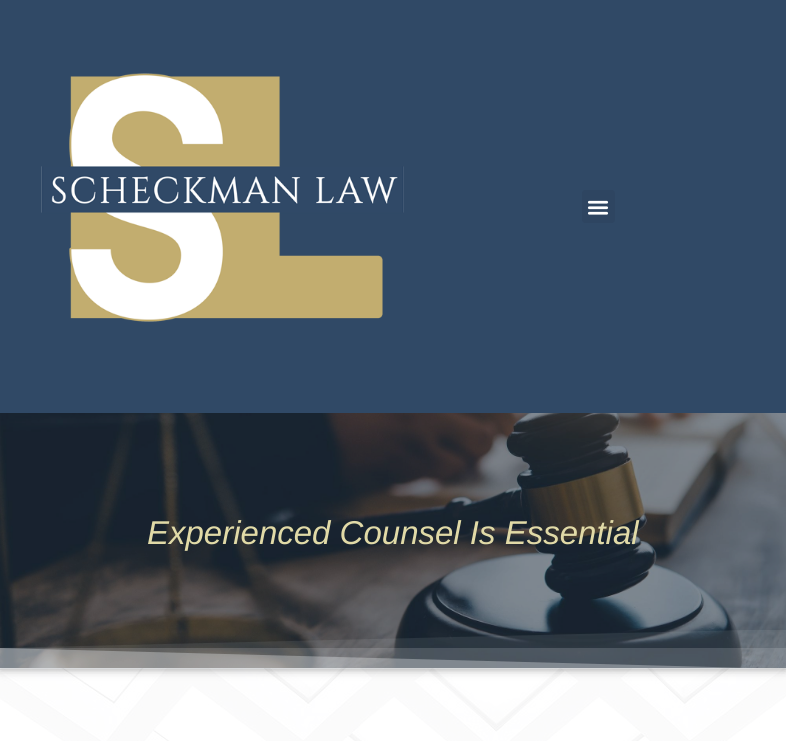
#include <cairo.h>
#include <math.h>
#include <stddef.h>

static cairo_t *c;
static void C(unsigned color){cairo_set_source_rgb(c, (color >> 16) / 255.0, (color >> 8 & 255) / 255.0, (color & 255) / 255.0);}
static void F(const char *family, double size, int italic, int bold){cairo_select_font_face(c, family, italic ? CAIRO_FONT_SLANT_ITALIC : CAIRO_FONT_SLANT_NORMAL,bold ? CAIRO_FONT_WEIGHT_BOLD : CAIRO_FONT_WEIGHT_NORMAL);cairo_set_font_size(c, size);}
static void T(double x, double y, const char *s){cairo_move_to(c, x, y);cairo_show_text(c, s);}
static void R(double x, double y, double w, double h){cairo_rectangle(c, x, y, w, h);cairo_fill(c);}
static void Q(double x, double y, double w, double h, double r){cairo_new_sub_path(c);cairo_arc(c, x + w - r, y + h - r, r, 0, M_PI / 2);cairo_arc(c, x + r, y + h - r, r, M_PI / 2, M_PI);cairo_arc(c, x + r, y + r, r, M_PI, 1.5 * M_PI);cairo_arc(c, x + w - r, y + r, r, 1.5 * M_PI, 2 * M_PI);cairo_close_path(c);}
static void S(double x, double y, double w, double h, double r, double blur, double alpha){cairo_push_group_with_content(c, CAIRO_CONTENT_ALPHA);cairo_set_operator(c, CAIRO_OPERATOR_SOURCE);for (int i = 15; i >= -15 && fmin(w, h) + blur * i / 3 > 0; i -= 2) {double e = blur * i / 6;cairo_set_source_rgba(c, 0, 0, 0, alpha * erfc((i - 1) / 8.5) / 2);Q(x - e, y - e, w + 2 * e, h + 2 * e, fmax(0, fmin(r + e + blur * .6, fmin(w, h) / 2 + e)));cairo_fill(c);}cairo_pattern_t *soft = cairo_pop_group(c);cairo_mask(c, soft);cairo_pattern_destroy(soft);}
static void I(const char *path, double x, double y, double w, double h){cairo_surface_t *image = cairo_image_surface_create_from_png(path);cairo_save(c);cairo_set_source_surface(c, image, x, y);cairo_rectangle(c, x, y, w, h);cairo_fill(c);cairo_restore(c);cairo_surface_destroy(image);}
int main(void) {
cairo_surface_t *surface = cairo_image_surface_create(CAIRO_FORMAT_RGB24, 786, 741);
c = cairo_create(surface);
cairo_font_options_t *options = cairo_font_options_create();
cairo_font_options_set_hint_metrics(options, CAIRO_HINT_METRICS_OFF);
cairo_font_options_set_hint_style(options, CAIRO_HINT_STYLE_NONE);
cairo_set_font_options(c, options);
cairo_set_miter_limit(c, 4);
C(0xffffff);
cairo_paint(c);
C(0x000000);
S(0,413,786,255,0,5,.5);
C(0x304966);
R(0,0,786,413);
I("1.png",41,73,363,249);
C(0x2e4561);
Q(582,190,33,33,3);
cairo_fill(c);
I("2.png",587,200,22,15);
I("3.png",0,413,786,255);
F("Liberation Sans",33,1,0);
C(0xe1daa7);
T(147,544,"Experienced Counsel Is Essential");
cairo_set_source_rgba(c,0.906,0.918,0.929,0.35);
cairo_new_path(c);
cairo_move_to(c,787,669);
cairo_line_to(c,-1,669);
cairo_line_to(c,-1,648);
cairo_close_path(c);
cairo_fill(c);
cairo_set_source_rgba(c,0.906,0.918,0.929,0.17);
R(0,648,786,21);
cairo_save(c);
cairo_rectangle(c,0,630,786,39);
cairo_clip(c);
cairo_set_source_rgba(c,0.906,0.918,0.929,0.09);
cairo_new_path(c);
cairo_move_to(c,-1,669);
cairo_line_to(c,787,669);
cairo_line_to(c,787,629);
cairo_line_to(c,-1,648);
cairo_close_path(c);
cairo_fill(c);
cairo_restore(c);
I("4.png",0,668,786,73);
cairo_surface_write_to_png(surface, "o.png");
cairo_font_options_destroy(options);
cairo_destroy(c);
cairo_surface_destroy(surface);
return 0;
}
